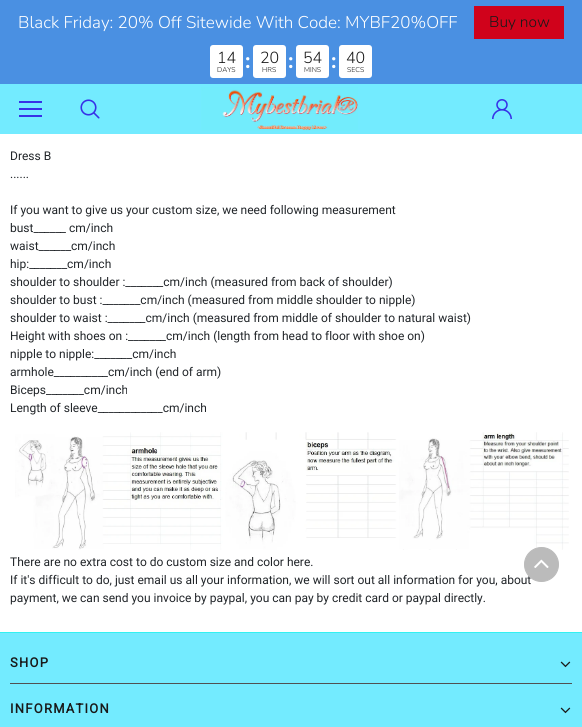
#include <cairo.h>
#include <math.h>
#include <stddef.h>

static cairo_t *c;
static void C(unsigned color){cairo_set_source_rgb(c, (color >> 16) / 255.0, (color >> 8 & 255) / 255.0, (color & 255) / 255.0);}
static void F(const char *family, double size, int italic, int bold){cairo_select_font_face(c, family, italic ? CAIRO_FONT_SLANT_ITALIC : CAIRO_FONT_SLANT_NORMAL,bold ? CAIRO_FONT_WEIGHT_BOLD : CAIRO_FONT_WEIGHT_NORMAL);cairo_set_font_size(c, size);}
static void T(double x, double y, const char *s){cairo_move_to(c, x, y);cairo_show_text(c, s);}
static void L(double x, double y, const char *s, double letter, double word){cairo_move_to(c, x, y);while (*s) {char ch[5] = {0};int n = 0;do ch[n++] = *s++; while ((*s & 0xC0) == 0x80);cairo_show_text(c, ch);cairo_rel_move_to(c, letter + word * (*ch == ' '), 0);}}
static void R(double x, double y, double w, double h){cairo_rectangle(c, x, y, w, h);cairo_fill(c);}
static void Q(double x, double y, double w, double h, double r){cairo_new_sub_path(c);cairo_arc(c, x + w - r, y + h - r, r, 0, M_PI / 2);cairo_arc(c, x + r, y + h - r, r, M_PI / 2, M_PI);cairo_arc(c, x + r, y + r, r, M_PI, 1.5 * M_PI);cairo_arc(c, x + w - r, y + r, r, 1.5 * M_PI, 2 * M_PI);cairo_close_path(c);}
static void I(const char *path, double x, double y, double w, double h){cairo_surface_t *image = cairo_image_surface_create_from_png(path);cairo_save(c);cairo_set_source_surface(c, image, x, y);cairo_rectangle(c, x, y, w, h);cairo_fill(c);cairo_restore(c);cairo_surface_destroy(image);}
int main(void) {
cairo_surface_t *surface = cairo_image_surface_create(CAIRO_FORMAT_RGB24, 582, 727);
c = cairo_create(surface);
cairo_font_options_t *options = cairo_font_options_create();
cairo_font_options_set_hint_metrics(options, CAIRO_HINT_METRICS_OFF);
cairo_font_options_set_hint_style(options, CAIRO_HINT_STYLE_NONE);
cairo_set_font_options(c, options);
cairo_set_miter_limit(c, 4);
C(0xffffff);
cairo_paint(c);
C(0x4a90e2);
R(0,0,582,84);
F("Nunito Light",17,0,0);
C(0xffffff);
T(18,28,"Black Friday: 20% Off Sitewide With Code: MYBF20%OFF");
C(0xd0021b);
R(474,6,90,33);
F("Nunito Light",15.5,0,0);
C(0x191919);
T(489,27,"Buy now");
C(0xffffff);
Q(210,45,33,33,3);
cairo_fill(c);
F("Nunito Light",16,0,0);
C(0x191919);
T(217,63,"14");
F("Nunito Light",7,0,0);
T(217,72,"DAYS");
F("Nunito",22,0,1);
C(0xffffff);
T(245,68,":");
Q(253,45,33,33,3);
cairo_fill(c);
F("Nunito Light",16,0,0);
C(0x191919);
T(260,63,"20");
F("Nunito Light",7,0,0);
T(262,72,"HRS");
F("Nunito",22,0,1);
C(0xffffff);
T(288,68,":");
Q(296,45,33,33,3);
cairo_fill(c);
F("Nunito Light",16,0,0);
C(0x191919);
T(303,63,"54");
F("Nunito Light",7,0,0);
T(304,72,"MINS");
F("Nunito",22,0,1);
C(0xffffff);
T(331,68,":");
Q(339,45,33,33,3);
cairo_fill(c);
F("Nunito Light",16,0,0);
C(0x191919);
T(346,63,"40");
F("Nunito Light",7,0,0);
T(347,72,"SECS");
C(0x73ebff);
R(0,84,582,50);
C(0x3731e7);
R(19,108,23,2);
R(19,101,23,2);
R(19,115,23,2);
I("1.png",80,99,20,20);
I("2.png",201,87,157,44);
I("3.png",492,99,20,20);
F("Roboto",12,0,0);
C(0x212529);
T(10,160,"Dress B");
T(10,178,"......");
T(10,214,"If you want to give us your custom size, we need following measurement");
T(10,232,"bust______ cm/inch");
T(10,250,"waist______cm/inch");
T(10,268,"hip:_______cm/inch");
T(10,286,"shoulder to shoulder :_______cm/inch (measured from back of shoulder)");
T(10,304,"shoulder to bust :_______cm/inch (measured from middle shoulder to nipple)");
T(10,322,"shoulder to waist :_______cm/inch (measured from middle of shoulder to natural waist)");
T(10,340,"Height with shoes on :_______cm/inch (length from head to floor with shoe on)");
T(10,358,"nipple to nipple:_______cm/inch");
T(10,376,"armhole__________cm/inch (end of arm)");
T(10,394,"Biceps_______cm/inch");
T(10,412,"Length of sleeve____________cm/inch");
I("4.png",15,432,554,118);
T(10,566,"There are no extra cost to do custom size and color here.");
T(10,584,"If it's difficult to do, just email us all your information, we will sort out all information for you, about");
T(10,602,"payment, we can send you invoice by paypal, you can pay by credit card or paypal directly.");
C(0xbbbbbb);
cairo_new_path(c);
cairo_arc(c,541.5,564.5,17,0,2 * M_PI);
cairo_fill_preserve(c);
cairo_set_line_width(c,1);
cairo_stroke(c);
I("5.png",534,559,15,9);
C(0x32f1f1);
R(0,632,582,1);
C(0x73ebff);
R(0,633,582,94);
C(0x515151);
R(10,683,562,1);
F("Roboto",13,0,1);
C(0x191919);
L(10,667,"SHOP",1.25,0);
I("6.png",560,661,11,7);
L(10,713,"INFORMATION",1.25,0);
I("6.png",560,707,11,7);
cairo_surface_write_to_png(surface, "o.png");
cairo_font_options_destroy(options);
cairo_destroy(c);
cairo_surface_destroy(surface);
return 0;
}
